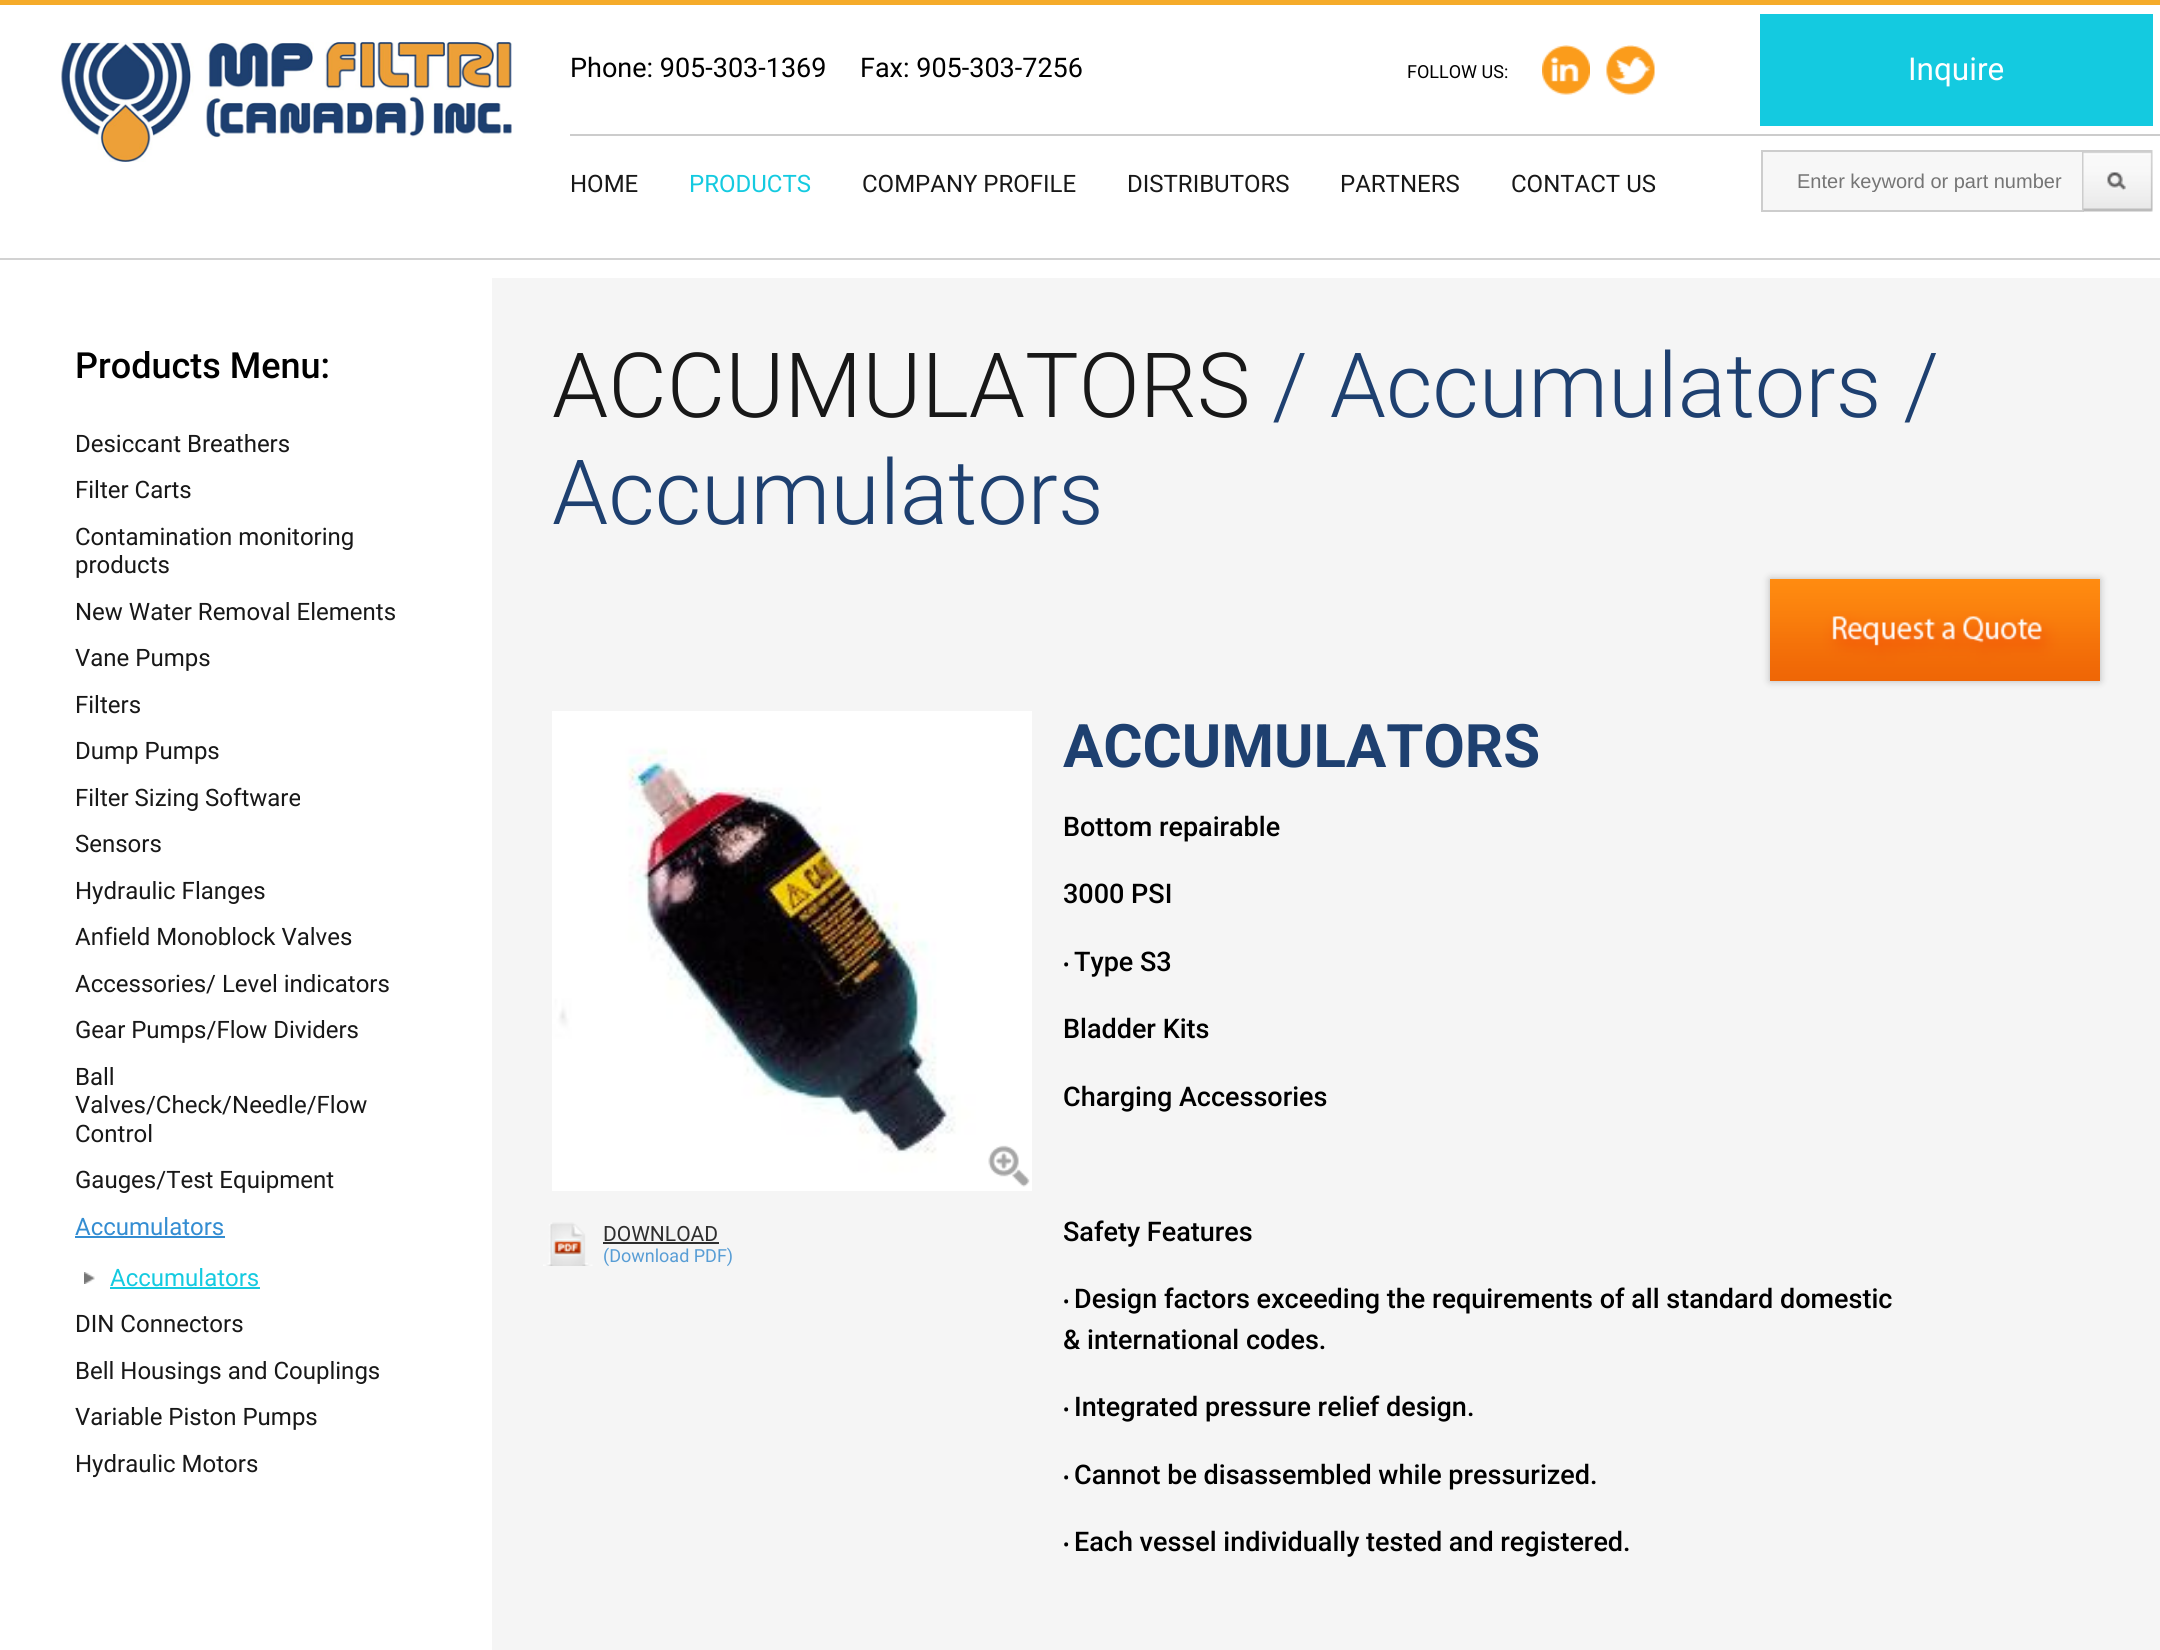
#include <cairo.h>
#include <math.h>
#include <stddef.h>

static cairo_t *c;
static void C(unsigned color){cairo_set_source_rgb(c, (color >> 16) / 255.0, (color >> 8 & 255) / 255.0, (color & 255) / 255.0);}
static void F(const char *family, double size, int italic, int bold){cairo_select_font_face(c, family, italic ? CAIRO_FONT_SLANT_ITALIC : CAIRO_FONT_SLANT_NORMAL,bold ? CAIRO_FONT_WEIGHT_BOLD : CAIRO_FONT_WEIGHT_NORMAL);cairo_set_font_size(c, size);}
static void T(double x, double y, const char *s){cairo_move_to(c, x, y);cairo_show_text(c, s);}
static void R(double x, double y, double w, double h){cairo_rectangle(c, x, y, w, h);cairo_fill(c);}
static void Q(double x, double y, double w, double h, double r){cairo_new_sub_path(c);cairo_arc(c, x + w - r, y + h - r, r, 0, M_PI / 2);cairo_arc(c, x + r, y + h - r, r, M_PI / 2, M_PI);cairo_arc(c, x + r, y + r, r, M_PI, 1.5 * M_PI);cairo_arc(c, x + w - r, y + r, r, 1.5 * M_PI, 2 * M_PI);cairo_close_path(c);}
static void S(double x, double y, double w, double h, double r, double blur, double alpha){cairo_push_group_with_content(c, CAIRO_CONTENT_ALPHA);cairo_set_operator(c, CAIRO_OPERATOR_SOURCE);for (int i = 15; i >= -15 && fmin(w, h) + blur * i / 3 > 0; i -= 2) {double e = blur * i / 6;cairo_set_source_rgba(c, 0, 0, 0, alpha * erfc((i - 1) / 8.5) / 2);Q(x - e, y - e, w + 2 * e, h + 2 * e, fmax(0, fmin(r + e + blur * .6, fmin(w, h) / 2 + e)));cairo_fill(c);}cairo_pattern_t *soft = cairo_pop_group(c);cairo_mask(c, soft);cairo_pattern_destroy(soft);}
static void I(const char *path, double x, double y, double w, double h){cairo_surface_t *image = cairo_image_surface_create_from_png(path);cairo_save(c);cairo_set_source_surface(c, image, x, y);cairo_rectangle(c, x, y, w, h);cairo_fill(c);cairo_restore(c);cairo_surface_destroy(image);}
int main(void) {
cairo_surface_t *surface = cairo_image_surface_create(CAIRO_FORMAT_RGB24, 2160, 1650);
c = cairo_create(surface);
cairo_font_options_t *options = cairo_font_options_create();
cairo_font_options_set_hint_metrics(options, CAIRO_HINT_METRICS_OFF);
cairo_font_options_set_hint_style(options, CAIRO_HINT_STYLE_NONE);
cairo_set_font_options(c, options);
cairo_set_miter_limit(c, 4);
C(0xffffff);
cairo_paint(c);
C(0xf5ab2a);
R(0,0,2160,5);
C(0xd2d2d2);
R(0,258,2160,2);
I("1.png",61,42,451,120);
C(0xcccccc);
R(570,134,1590,2);
F("Roboto",27,0,0);
C(0x000000);
T(570,77,"Phone: 905-303-1369");
T(860,77,"Fax: 905-303-7256");
F("Roboto",18,0,0);
T(1407,78,"FOLLOW US:");
I("2.png",1542,45,48,50);
I("3.png",1606,45,49,50);
C(0x14cae0);
R(1760,14,393,112);
F("Roboto",31.5,0,0);
C(0xffffff);
T(1908,80,"Inquire");
F("Roboto",24,0,0);
C(0x181818);
T(570,192,"HOME");
C(0x14cae0);
T(689,192,"PRODUCTS");
C(0x181818);
T(862,192,"COMPANY PROFILE");
T(1127,192,"DISTRIBUTORS");
T(1340,192,"PARTNERS");
T(1511,192,"CONTACT US");
C(0xf7f7f7);
cairo_rectangle(c,1762,151,321,60);
cairo_fill_preserve(c);
C(0xcdcdcd);
cairo_stroke(c);
cairo_save(c);
cairo_rectangle(c,1763,170,319,22);
cairo_clip(c);
F("Liberation Sans",20,0,0);
C(0x757575);
T(1797,188,"Enter keyword or part number");
cairo_restore(c);
I("4.png",2083,150,70,62);
F("Roboto Medium",36,0,0);
C(0x000000);
T(75,378,"Products Menu:");
F("Roboto",24,0,0);
C(0x181818);
T(75,452,"Desiccant Breathers");
T(75,498,"Filter Carts");
T(75,545,"Contamination monitoring");
T(75,573,"products");
T(75,620,"New Water Removal Elements");
T(75,666,"Vane Pumps");
T(75,713,"Filters");
T(75,759,"Dump Pumps");
T(75,806,"Filter Sizing Software");
T(75,852,"Sensors");
T(75,899,"Hydraulic Flanges");
T(75,945,"Anfield Monoblock Valves");
T(75,992,"Accessories/ Level indicators");
T(75,1038,"Gear Pumps/Flow Dividers");
T(75,1085,"Ball");
T(75,1113,"Valves/Check/Needle/Flow");
T(75,1142,"Control");
T(75,1188,"Gauges/Test Equipment");
C(0x348dd2);
T(75,1235,"Accumulators");
R(75,1236,150,2);
I("5.png",84,1272,11,12);
C(0x14cae0);
T(110,1286,"Accumulators");
R(110,1287,150,2);
C(0x181818);
T(75,1332,"DIN Connectors");
T(75,1379,"Bell Housings and Couplings");
T(75,1425,"Variable Piston Pumps");
T(75,1472,"Hydraulic Motors");
C(0xf5f5f5);
R(492,278,1668,1372);
F("Roboto Light",90,0,0);
C(0x181818);
T(552,417,"ACCUMULATORS");
C(0x1e4070);
T(1272,417,"/ Accumulators /");
T(552,524,"Accumulators");
C(0x000000);
S(1770,579,330,102,0,4,.25);
I("6.png",1770,579,330,102);
I("7.png",552,711,480,480);
I("8.png",988,1145,42,42);
I("9.png",543,1222,50,44);
F("Roboto",21,0,0);
C(0x2f2f2f);
T(603,1241,"DOWNLOAD");
R(603,1242,116,2);
F("Roboto",18,0,0);
C(0x589dd5);
T(603,1262,"(Download PDF)");
F("Roboto",60,0,1);
C(0x1e4070);
T(1063,767,"ACCUMULATORS");
F("Roboto Medium",27,0,0);
C(0x000000);
T(1063,836,"Bottom repairable");
T(1063,903,"3000 PSI");
F("Roboto Medium",18,0,0);
T(1063,971,"•");
F("Roboto Medium",27,0,0);
T(1074,971,"Type S3");
T(1063,1038,"Bladder Kits");
T(1063,1106,"Charging Accessories");
T(1063,1241,"Safety Features");
F("Roboto Medium",18,0,0);
T(1063,1308,"•");
F("Roboto Medium",27,0,0);
T(1074,1308,"Design factors exceeding the requirements of all standard domestic");
T(1063,1349,"& international codes.");
F("Roboto Medium",18,0,0);
T(1063,1416,"•");
F("Roboto Medium",27,0,0);
T(1074,1416,"Integrated pressure relief design.");
F("Roboto Medium",18,0,0);
T(1063,1484,"•");
F("Roboto Medium",27,0,0);
T(1074,1484,"Cannot be disassembled while pressurized.");
F("Roboto Medium",18,0,0);
T(1063,1551,"•");
F("Roboto Medium",27,0,0);
T(1074,1551,"Each vessel individually tested and registered.");
cairo_surface_write_to_png(surface, "o.png");
cairo_font_options_destroy(options);
cairo_destroy(c);
cairo_surface_destroy(surface);
return 0;
}
